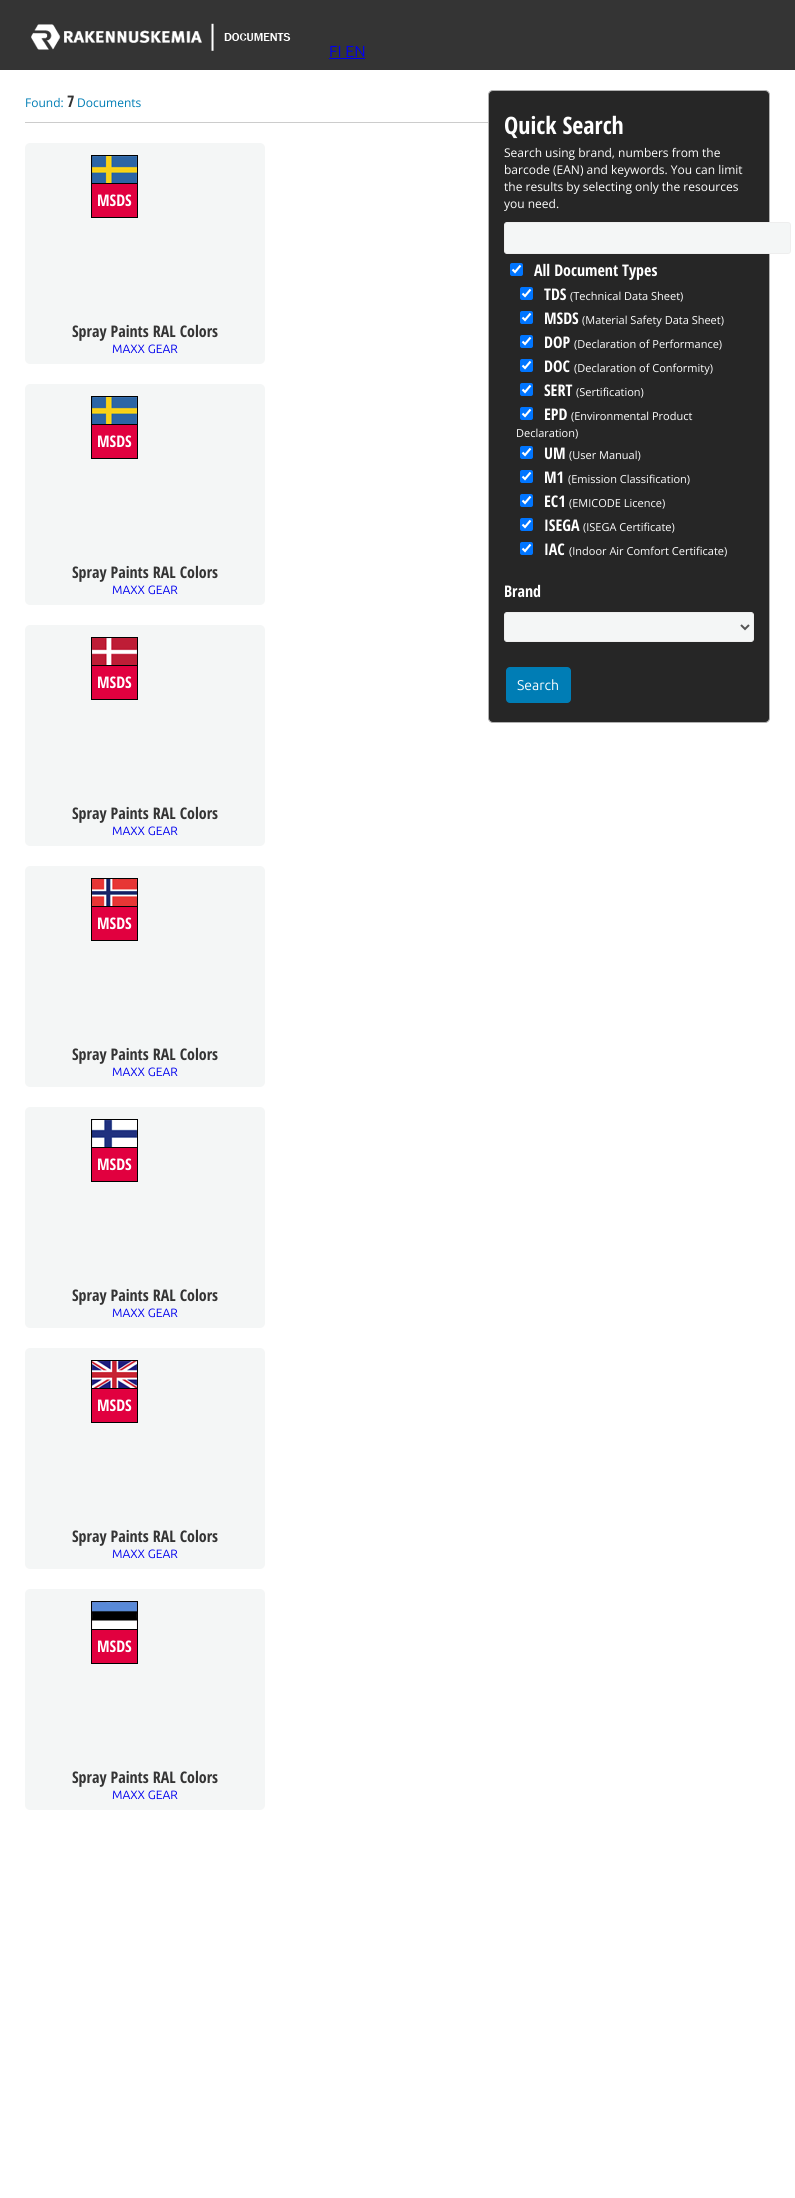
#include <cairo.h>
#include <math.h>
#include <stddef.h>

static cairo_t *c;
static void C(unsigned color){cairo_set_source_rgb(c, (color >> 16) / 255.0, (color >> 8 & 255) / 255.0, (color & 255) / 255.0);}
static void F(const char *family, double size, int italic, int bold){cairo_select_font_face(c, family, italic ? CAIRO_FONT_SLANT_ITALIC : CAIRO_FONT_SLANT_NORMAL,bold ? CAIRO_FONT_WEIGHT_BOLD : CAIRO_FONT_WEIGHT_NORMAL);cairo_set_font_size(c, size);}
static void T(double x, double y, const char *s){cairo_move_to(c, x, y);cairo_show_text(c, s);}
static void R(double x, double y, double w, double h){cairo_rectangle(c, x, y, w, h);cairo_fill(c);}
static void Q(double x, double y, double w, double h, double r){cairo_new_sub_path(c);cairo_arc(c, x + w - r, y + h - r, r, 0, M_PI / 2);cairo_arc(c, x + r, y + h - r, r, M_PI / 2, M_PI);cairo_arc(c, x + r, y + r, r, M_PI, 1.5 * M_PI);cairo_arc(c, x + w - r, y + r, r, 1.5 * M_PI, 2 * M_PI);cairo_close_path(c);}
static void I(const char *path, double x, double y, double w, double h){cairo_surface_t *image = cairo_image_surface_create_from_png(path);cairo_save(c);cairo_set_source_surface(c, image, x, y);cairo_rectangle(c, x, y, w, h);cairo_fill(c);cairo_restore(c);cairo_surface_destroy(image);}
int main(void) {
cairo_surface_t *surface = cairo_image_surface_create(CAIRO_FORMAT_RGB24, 795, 2198);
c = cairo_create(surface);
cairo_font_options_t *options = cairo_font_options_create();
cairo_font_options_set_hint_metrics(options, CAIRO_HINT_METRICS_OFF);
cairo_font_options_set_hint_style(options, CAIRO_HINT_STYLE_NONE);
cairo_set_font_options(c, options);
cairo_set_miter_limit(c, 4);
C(0xffffff);
cairo_paint(c);
C(0x343434);
R(0,0,795,70);
I("1.png",31,23,260,28);
F("Ubuntu",16,0,0);
C(0x0000ee);
T(329,57,"FI EN");
R(329,58,36,1);
C(0xcccccc);
R(25,122,463,1);
F("Open Sans",12,0,0);
C(0x007db5);
T(25,107,"Found:");
F("Open Sans Condensed",16,0,1);
C(0x343434);
T(67,107,"7");
F("Open Sans",12,0,0);
C(0x007db5);
T(77,107,"Documents");
C(0xf4f6f6);
Q(25,143,240,221,5);
cairo_fill(c);
cairo_rectangle(c,91.5,155.5,46,29);
C(0x000000);
cairo_set_line_width(c,1);
cairo_stroke(c);
I("2.png",92,156,45,27);
C(0xe1003f);
cairo_rectangle(c,91.5,183.5,46,34);
cairo_fill_preserve(c);
C(0x000000);
cairo_stroke(c);
F("Open Sans Condensed",16,0,1);
C(0xffffff);
T(97,206,"MSDS");
C(0x343434);
T(72,337,"Spray Paints RAL Colors");
F("Ubuntu",12,0,0);
C(0x0000ee);
T(112,353,"MAXX GEAR");
C(0xf4f6f6);
Q(25,384,240,221,5);
cairo_fill(c);
cairo_rectangle(c,91.5,396.5,46,29);
C(0x000000);
cairo_stroke(c);
I("2.png",92,397,45,27);
C(0xe1003f);
cairo_rectangle(c,91.5,424.5,46,34);
cairo_fill_preserve(c);
C(0x000000);
cairo_stroke(c);
F("Open Sans Condensed",16,0,1);
C(0xffffff);
T(97,447,"MSDS");
C(0x343434);
T(72,578,"Spray Paints RAL Colors");
F("Ubuntu",12,0,0);
C(0x0000ee);
T(112,594,"MAXX GEAR");
C(0xf4f6f6);
Q(25,625,240,221,5);
cairo_fill(c);
cairo_rectangle(c,91.5,637.5,46,29);
C(0x000000);
cairo_stroke(c);
I("3.png",92,638,45,27);
C(0xe1003f);
cairo_rectangle(c,91.5,665.5,46,34);
cairo_fill_preserve(c);
C(0x000000);
cairo_stroke(c);
F("Open Sans Condensed",16,0,1);
C(0xffffff);
T(97,688,"MSDS");
C(0x343434);
T(72,819,"Spray Paints RAL Colors");
F("Ubuntu",12,0,0);
C(0x0000ee);
T(112,835,"MAXX GEAR");
C(0xf4f6f6);
Q(25,866,240,221,5);
cairo_fill(c);
cairo_rectangle(c,91.5,878.5,46,29);
C(0x000000);
cairo_stroke(c);
I("4.png",92,879,45,27);
C(0xe1003f);
cairo_rectangle(c,91.5,906.5,46,34);
cairo_fill_preserve(c);
C(0x000000);
cairo_stroke(c);
F("Open Sans Condensed",16,0,1);
C(0xffffff);
T(97,929,"MSDS");
C(0x343434);
T(72,1060,"Spray Paints RAL Colors");
F("Ubuntu",12,0,0);
C(0x0000ee);
T(112,1076,"MAXX GEAR");
C(0xf4f6f6);
Q(25,1107,240,221,5);
cairo_fill(c);
cairo_rectangle(c,91.5,1119.5,46,29);
C(0x000000);
cairo_stroke(c);
I("5.png",92,1120,45,27);
C(0xe1003f);
cairo_rectangle(c,91.5,1147.5,46,34);
cairo_fill_preserve(c);
C(0x000000);
cairo_stroke(c);
F("Open Sans Condensed",16,0,1);
C(0xffffff);
T(97,1170,"MSDS");
C(0x343434);
T(72,1301,"Spray Paints RAL Colors");
F("Ubuntu",12,0,0);
C(0x0000ee);
T(112,1317,"MAXX GEAR");
C(0xf4f6f6);
Q(25,1348,240,221,5);
cairo_fill(c);
cairo_rectangle(c,91.5,1360.5,46,29);
C(0x000000);
cairo_stroke(c);
I("6.png",92,1361,45,27);
C(0xe1003f);
cairo_rectangle(c,91.5,1388.5,46,34);
cairo_fill_preserve(c);
C(0x000000);
cairo_stroke(c);
F("Open Sans Condensed",16,0,1);
C(0xffffff);
T(97,1411,"MSDS");
C(0x343434);
T(72,1542,"Spray Paints RAL Colors");
F("Ubuntu",12,0,0);
C(0x0000ee);
T(112,1558,"MAXX GEAR");
C(0xf4f6f6);
Q(25,1589,240,221,5);
cairo_fill(c);
cairo_rectangle(c,91.5,1601.5,46,29);
C(0x000000);
cairo_stroke(c);
I("7.png",92,1602,45,27);
C(0xe1003f);
cairo_rectangle(c,91.5,1629.5,46,34);
cairo_fill_preserve(c);
C(0x000000);
cairo_stroke(c);
F("Open Sans Condensed",16,0,1);
C(0xffffff);
T(97,1652,"MSDS");
C(0x343434);
T(72,1783,"Spray Paints RAL Colors");
F("Ubuntu",12,0,0);
C(0x0000ee);
T(112,1799,"MAXX GEAR");
C(0x262626);
Q(488.5,90.5,281,632,4.5);
cairo_fill_preserve(c);
C(0xb0b0b0);
cairo_stroke(c);
F("Open Sans Condensed",24,0,1);
C(0xffffff);
T(504,134,"Quick Search");
F("Open Sans",12,0,0);
T(504,157,"Search using brand, numbers from the");
T(504,174,"barcode (EAN) and keywords. You can limit");
T(504,191,"the results by selecting only the resources");
T(504,208,"you need.");
C(0xf4f6f6);
Q(504.5,222.5,286,31,2.5);
cairo_fill_preserve(c);
C(0xeeeeee);
cairo_stroke(c);
C(0x0075ff);
Q(510,263,13,13,2);
cairo_fill(c);
cairo_new_path(c);
cairo_move_to(c,512.5,269.5);
cairo_line_to(c,515,272);
cairo_line_to(c,520.5,265.5);
C(0xffffff);
cairo_set_line_width(c,2.1);
cairo_stroke(c);
F("Open Sans Condensed",16,0,1);
T(534,276,"All Document Types");
C(0x0075ff);
Q(520,287,13,13,2);
cairo_fill(c);
cairo_new_path(c);
cairo_move_to(c,522.5,293.5);
cairo_line_to(c,525,296);
cairo_line_to(c,530.5,289.5);
C(0xffffff);
cairo_stroke(c);
T(544,300,"TDS");
F("Open Sans",11,0,0);
T(570,300,"(Technical Data Sheet)");
C(0x0075ff);
Q(520,311,13,13,2);
cairo_fill(c);
cairo_new_path(c);
cairo_move_to(c,522.5,317.5);
cairo_line_to(c,525,320);
cairo_line_to(c,530.5,313.5);
C(0xffffff);
cairo_stroke(c);
F("Open Sans Condensed",16,0,1);
T(544,324,"MSDS");
F("Open Sans",11,0,0);
T(582,324,"(Material Safety Data Sheet)");
C(0x0075ff);
Q(520,335,13,13,2);
cairo_fill(c);
cairo_new_path(c);
cairo_move_to(c,522.5,341.5);
cairo_line_to(c,525,344);
cairo_line_to(c,530.5,337.5);
C(0xffffff);
cairo_stroke(c);
F("Open Sans Condensed",16,0,1);
T(544,348,"DOP");
F("Open Sans",11,0,0);
T(574,348,"(Declaration of Performance)");
C(0x0075ff);
Q(520,359,13,13,2);
cairo_fill(c);
cairo_new_path(c);
cairo_move_to(c,522.5,365.5);
cairo_line_to(c,525,368);
cairo_line_to(c,530.5,361.5);
C(0xffffff);
cairo_stroke(c);
F("Open Sans Condensed",16,0,1);
T(544,372,"DOC");
F("Open Sans",11,0,0);
T(574,372,"(Declaration of Conformity)");
C(0x0075ff);
Q(520,383,13,13,2);
cairo_fill(c);
cairo_new_path(c);
cairo_move_to(c,522.5,389.5);
cairo_line_to(c,525,392);
cairo_line_to(c,530.5,385.5);
C(0xffffff);
cairo_stroke(c);
F("Open Sans Condensed",16,0,1);
T(544,396,"SERT");
F("Open Sans",11,0,0);
T(576,396,"(Sertification)");
C(0x0075ff);
Q(520,407,13,13,2);
cairo_fill(c);
cairo_new_path(c);
cairo_move_to(c,522.5,413.5);
cairo_line_to(c,525,416);
cairo_line_to(c,530.5,409.5);
C(0xffffff);
cairo_stroke(c);
F("Open Sans Condensed",16,0,1);
T(544,420,"EPD");
F("Open Sans",11,0,0);
T(571,420,"(Environmental Product");
T(516,437,"Declaration)");
C(0x0075ff);
Q(520,446,13,13,2);
cairo_fill(c);
cairo_new_path(c);
cairo_move_to(c,522.5,452.5);
cairo_line_to(c,525,455);
cairo_line_to(c,530.5,448.5);
C(0xffffff);
cairo_stroke(c);
F("Open Sans Condensed",16,0,1);
T(544,459,"UM");
F("Open Sans",11,0,0);
T(569,459,"(User Manual)");
C(0x0075ff);
Q(520,470,13,13,2);
cairo_fill(c);
cairo_new_path(c);
cairo_move_to(c,522.5,476.5);
cairo_line_to(c,525,479);
cairo_line_to(c,530.5,472.5);
C(0xffffff);
cairo_stroke(c);
F("Open Sans Condensed",16,0,1);
T(544,483,"M1");
F("Open Sans",11,0,0);
T(568,483,"(Emission Classification)");
C(0x0075ff);
Q(520,494,13,13,2);
cairo_fill(c);
cairo_new_path(c);
cairo_move_to(c,522.5,500.5);
cairo_line_to(c,525,503);
cairo_line_to(c,530.5,496.5);
C(0xffffff);
cairo_stroke(c);
F("Open Sans Condensed",16,0,1);
T(544,507,"EC1");
F("Open Sans",11,0,0);
T(569,507,"(EMICODE Licence)");
C(0x0075ff);
Q(520,518,13,13,2);
cairo_fill(c);
cairo_new_path(c);
cairo_move_to(c,522.5,524.5);
cairo_line_to(c,525,527);
cairo_line_to(c,530.5,520.5);
C(0xffffff);
cairo_stroke(c);
F("Open Sans Condensed",16,0,1);
T(544,531,"ISEGA");
F("Open Sans",11,0,0);
T(583,531,"(ISEGA Certificate)");
C(0x0075ff);
Q(520,542,13,13,2);
cairo_fill(c);
cairo_new_path(c);
cairo_move_to(c,522.5,548.5);
cairo_line_to(c,525,551);
cairo_line_to(c,530.5,544.5);
C(0xffffff);
cairo_stroke(c);
F("Open Sans Condensed",16,0,1);
T(544,555,"IAC");
F("Open Sans",11,0,0);
T(569,555,"(Indoor Air Comfort Certificate)");
F("Open Sans Condensed",16,0,1);
T(504,597,"Brand");
C(0xf4f6f6);
Q(504.5,612.5,249,29,2.5);
cairo_fill_preserve(c);
C(0xeeeeee);
cairo_set_line_width(c,1);
cairo_stroke(c);
cairo_new_path(c);
cairo_move_to(c,741,625);
cairo_line_to(c,745,629);
cairo_line_to(c,749,625);
C(0x555555);
cairo_set_line_width(c,2);
cairo_stroke(c);
C(0x007db5);
Q(506,667,65,36,4);
cairo_fill(c);
F("Ubuntu",14,0,0);
C(0xffffff);
T(517,690,"Search");
cairo_surface_write_to_png(surface, "o.png");
cairo_font_options_destroy(options);
cairo_destroy(c);
cairo_surface_destroy(surface);
return 0;
}
